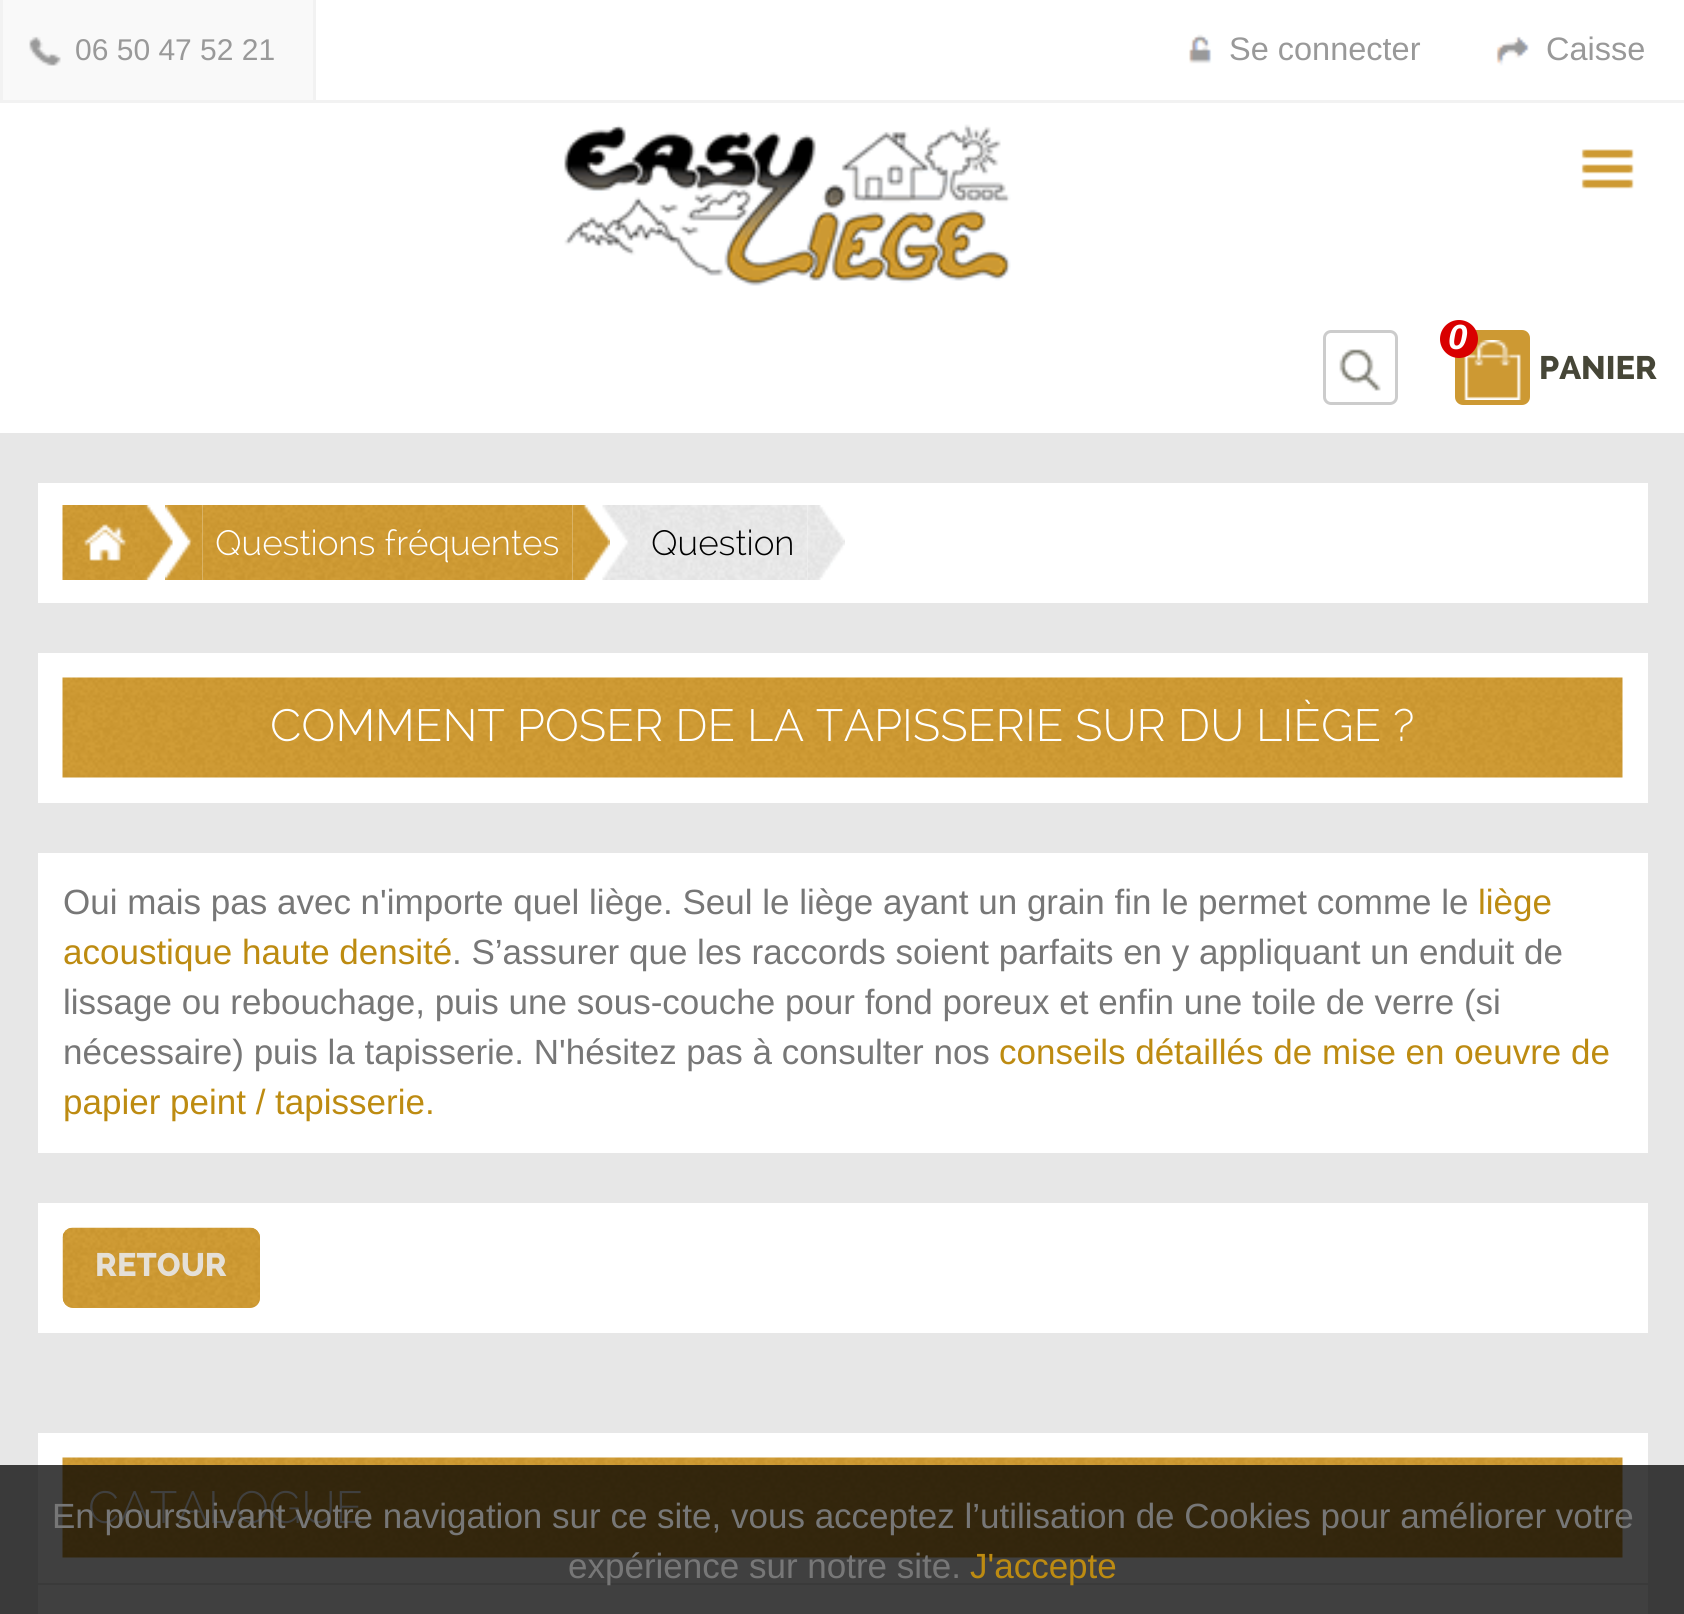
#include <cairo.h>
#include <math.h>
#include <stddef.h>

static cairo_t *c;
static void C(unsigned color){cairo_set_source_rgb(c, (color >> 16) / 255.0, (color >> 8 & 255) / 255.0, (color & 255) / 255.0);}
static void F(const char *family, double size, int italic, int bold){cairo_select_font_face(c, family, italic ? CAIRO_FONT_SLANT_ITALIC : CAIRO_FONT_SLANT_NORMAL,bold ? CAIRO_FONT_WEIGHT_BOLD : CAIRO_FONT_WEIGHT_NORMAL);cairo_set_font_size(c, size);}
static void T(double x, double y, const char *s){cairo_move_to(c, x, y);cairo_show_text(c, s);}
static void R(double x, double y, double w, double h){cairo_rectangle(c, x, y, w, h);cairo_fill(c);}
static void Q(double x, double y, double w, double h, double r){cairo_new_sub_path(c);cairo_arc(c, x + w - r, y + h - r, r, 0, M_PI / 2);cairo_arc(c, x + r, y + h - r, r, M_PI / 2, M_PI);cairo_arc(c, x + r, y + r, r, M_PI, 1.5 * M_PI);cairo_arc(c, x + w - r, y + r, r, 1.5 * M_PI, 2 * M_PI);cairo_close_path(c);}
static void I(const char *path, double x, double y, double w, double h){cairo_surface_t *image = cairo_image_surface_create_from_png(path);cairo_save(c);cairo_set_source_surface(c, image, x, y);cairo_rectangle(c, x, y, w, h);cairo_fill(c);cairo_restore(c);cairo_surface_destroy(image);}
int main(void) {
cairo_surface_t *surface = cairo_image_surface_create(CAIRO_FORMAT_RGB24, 1684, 1614);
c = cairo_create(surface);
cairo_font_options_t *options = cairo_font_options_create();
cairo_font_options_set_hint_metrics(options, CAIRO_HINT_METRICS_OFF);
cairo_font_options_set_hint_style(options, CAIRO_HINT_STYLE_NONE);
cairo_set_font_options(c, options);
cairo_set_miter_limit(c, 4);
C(0xe7e7e7);
cairo_paint(c);
C(0x3a3a3a);
R(0,1465,1684,149);
C(0xffffff);
R(316,0,1368,100);
C(0xf2f2f2);
R(0,100,1684,3);
C(0xf9f9f9);
R(3,0,310,100);
C(0xf2f2f2);
R(313,0,3,100);
R(0,0,3,100);
I("1.png",29,36,32,30);
F("Liberation Sans",30,0,0);
C(0x999999);
T(75,60,"06 50 47 52 21");
I("2.png",1188,34,24,30);
F("Liberation Sans",32.5,0,0);
T(1229,60,"Se connecter");
I("3.png",1496,36,33,30);
T(1546,60,"Caisse");
C(0xffffff);
R(0,103,1684,330);
I("4.png",1581,149,53,40);
I("5.png",564,124,447,162);
Q(1324.5,331.5,72,72,6.5);
C(0xcccccc);
cairo_set_line_width(c,3);
cairo_stroke(c);
I("6.png",1339,349,42,42);
C(0xcd9933);
Q(1456.5,331.5,72,72,6.5);
cairo_fill_preserve(c);
cairo_stroke(c);
I("7.png",1464,340,57,60);
C(0xd90000);
cairo_arc(c,1459,339,19,0,2 * M_PI);
cairo_fill(c);
F("Liberation Sans",35,1,1);
C(0xffffff);
T(1448,349,"0");
F("Raleway ExtraBold",32.5,0,0);
C(0x464637);
T(1539,379,"PANIER");
C(0xffffff);
R(38,483,1610,120);
I("8.png",62,505,73,75);
I("9.png",84,524,42,37);
I("10.png",135,505,38,75);
I("11.png",165,505,38,75);
I("12.png",202,505,371,75);
F("Raleway Light",35,0,0);
T(215,555,"Questions fréquentes");
I("13.png",572,505,38,75);
I("14.png",602,505,38,75);
I("15.png",640,505,168,75);
C(0x000000);
T(651,555,"Question");
I("16.png",807,505,38,75);
C(0xffffff);
R(38,653,1610,150);
I("17.png",62,677,1561,101);
F("Raleway Light",45,0,0);
T(270,741,"COMMENT POSER DE LA TAPISSERIE SUR DU LIÈGE ?");
R(38,853,1610,300);
F("Liberation Sans",35,0,0);
C(0x777777);
T(63,914,"Oui mais pas avec n'importe quel liège. Seul le liège ayant un grain fin le permet comme le");
C(0xbd8b11);
T(1478,914,"liège");
T(63,964,"acoustique haute densité");
C(0x777777);
T(452,964,". S’assurer que les raccords soient parfaits en y appliquant un enduit de");
T(63,1014,"lissage ou rebouchage, puis une sous-couche pour fond poreux et enfin une toile de verre (si");
T(63,1064,"nécessaire) puis la tapisserie. N'hésitez pas à consulter nos");
C(0xbd8b11);
T(999,1064,"conseils détaillés de mise en oeuvre de");
T(63,1114,"papier peint / tapisserie.");
C(0xffffff);
R(38,1203,1610,130);
C(0xcd9933);
Q(63,1228,197,80,10);
cairo_fill(c);
I("18.png",62,1227,198,81);
F("Raleway ExtraBold",32.5,0,0);
C(0xe5e0d7);
T(95,1276,"RETOUR");
C(0xffffff);
R(38,1433,1610,32);
C(0x404040);
R(38,1465,1610,118);
I("19.png",62,1457,1561,101);
F("Raleway Light",45,0,0);
T(88,1523,"CATALOGUE");
R(38,1585,1610,29);
F("Liberation Sans",35,0,0);
C(0x777777);
T(52,1528,"En poursuivant votre navigation sur ce site, vous acceptez l’utilisation de Cookies pour améliorer votre");
T(568,1578,"expérience sur notre site.");
C(0xbd8b11);
T(970,1578,"J'accepte");
cairo_surface_write_to_png(surface, "o.png");
cairo_font_options_destroy(options);
cairo_destroy(c);
cairo_surface_destroy(surface);
return 0;
}
